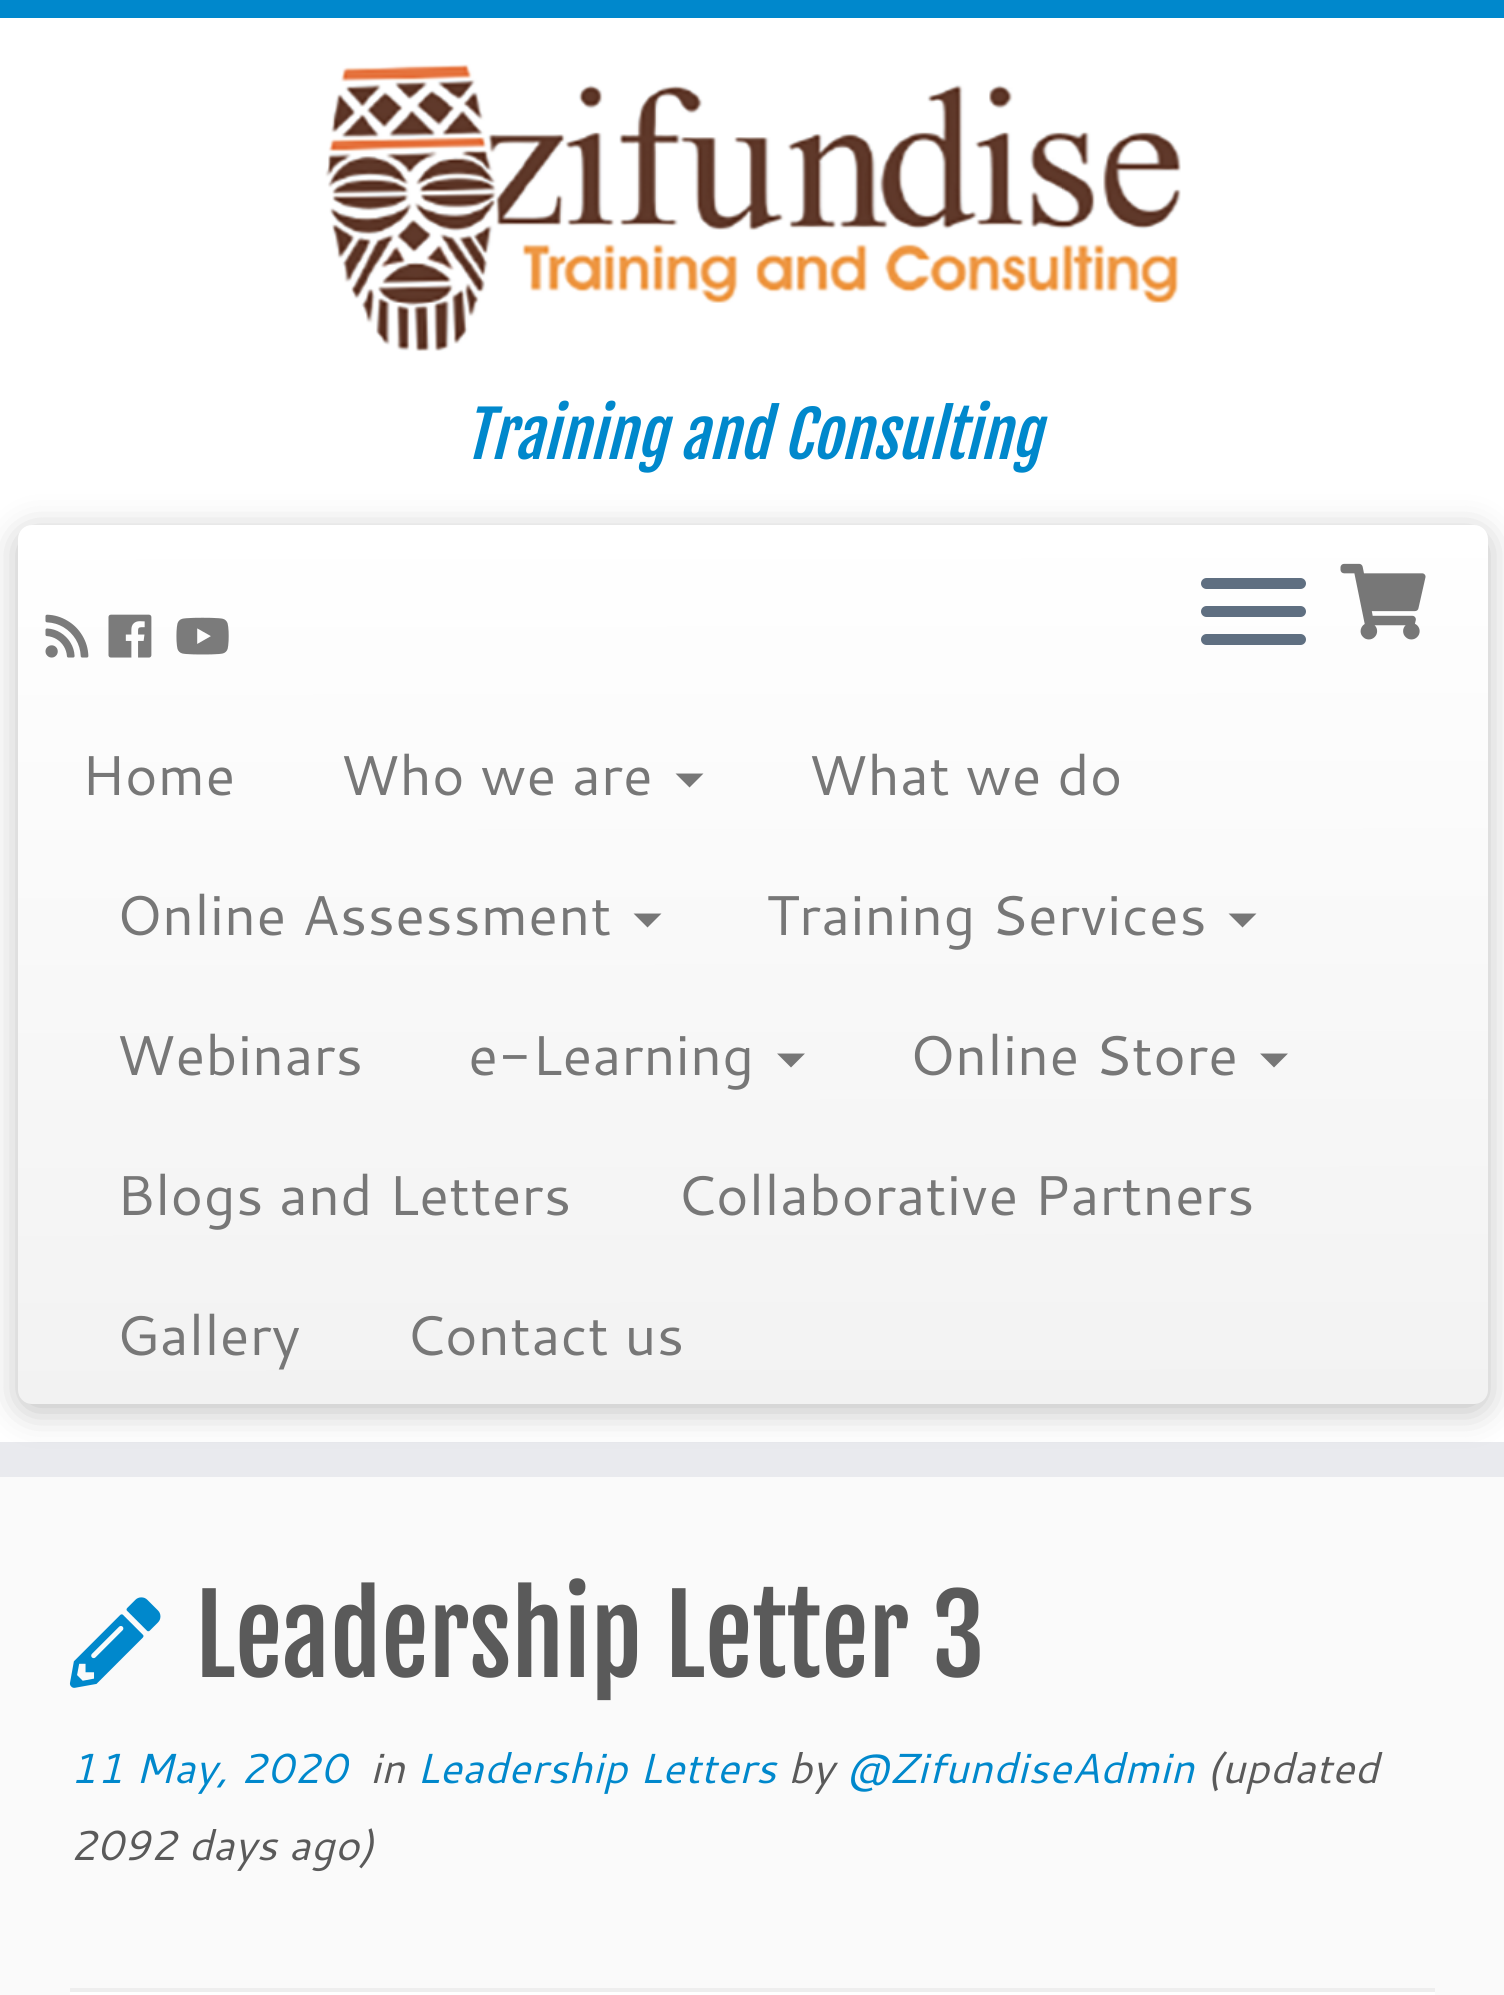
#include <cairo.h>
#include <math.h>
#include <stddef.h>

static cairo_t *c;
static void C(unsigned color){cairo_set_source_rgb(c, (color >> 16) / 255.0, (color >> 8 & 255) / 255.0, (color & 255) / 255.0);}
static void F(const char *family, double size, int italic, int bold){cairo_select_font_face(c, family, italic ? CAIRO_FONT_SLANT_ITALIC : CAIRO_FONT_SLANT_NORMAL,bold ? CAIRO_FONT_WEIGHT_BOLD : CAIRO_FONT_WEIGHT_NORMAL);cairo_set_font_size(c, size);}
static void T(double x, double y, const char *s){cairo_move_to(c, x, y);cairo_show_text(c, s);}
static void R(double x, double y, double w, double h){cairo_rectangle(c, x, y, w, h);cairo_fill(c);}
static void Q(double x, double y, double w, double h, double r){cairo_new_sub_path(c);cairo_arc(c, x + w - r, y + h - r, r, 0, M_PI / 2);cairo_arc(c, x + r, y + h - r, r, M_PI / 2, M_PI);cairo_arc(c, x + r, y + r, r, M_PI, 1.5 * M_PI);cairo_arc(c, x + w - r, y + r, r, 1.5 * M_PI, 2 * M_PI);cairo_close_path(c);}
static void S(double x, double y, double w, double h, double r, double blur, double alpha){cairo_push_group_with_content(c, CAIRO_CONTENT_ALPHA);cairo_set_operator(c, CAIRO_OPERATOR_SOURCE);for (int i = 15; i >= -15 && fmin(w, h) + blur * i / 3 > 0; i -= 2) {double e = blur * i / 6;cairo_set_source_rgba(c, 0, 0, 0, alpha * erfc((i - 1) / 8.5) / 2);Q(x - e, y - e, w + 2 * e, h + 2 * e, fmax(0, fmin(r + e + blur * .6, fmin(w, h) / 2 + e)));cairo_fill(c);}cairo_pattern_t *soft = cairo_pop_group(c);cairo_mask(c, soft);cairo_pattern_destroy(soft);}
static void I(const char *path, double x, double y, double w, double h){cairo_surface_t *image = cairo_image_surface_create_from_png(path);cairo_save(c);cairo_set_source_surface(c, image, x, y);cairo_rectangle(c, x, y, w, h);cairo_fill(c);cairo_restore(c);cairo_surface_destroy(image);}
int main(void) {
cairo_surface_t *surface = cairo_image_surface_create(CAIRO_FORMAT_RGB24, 1504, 1995);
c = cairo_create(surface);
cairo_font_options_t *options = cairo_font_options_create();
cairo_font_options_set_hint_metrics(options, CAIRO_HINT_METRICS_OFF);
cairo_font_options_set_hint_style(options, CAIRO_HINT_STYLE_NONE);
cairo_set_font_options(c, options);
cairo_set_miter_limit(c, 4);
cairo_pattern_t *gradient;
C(0xfafafa);
cairo_paint(c);
C(0xffffff);
R(0,18,1504,1424);
C(0x0088cc);
R(0,0,1504,18);
C(0xe9eaee);
R(0,1442,1504,35);
I("1.png",325,64,856,288);
F("Fjalla One",63,1,0);
C(0x0088cc);
T(464,459,"Training and Consulting");
C(0x000000);
S(18,532,1470,879,14,17.5,.25);
gradient = cairo_pattern_create_linear(752,525,753,1404);
cairo_pattern_add_color_stop_rgba(gradient,0,1,1,1,1);
cairo_pattern_add_color_stop_rgba(gradient,1,0.949,0.949,0.949,1);
cairo_set_source(c,gradient);
cairo_pattern_destroy(gradient);
Q(18,525,1470,879,14);
cairo_fill(c);
I("2.png",45,614,44,44);
I("3.png",108,614,44,44);
I("4.png",176,617,53,38);
C(0x5f6f81);
Q(1201,578,105,11,5.5);
cairo_fill(c);
Q(1201,606,105,11,5.5);
cairo_fill(c);
Q(1201,634,105,11,5.5);
cairo_fill(c);
I("5.png",1340,563,86,77);
F("Cantarell",56,0,0);
C(0x777777);
T(81,795,"Home");
T(340,795,"Who we are");
cairo_new_path(c);
cairo_move_to(c,675.5,773.5);
cairo_line_to(c,703.5,773.5);
cairo_line_to(c,689.5,787.5);
cairo_close_path(c);
cairo_fill(c);
T(808,795,"What we do");
T(116,935,"Online Assessment");
cairo_new_path(c);
cairo_move_to(c,633.5,913.5);
cairo_line_to(c,661.5,913.5);
cairo_line_to(c,647.5,927.5);
cairo_close_path(c);
cairo_fill(c);
T(766,935,"Training Services");
cairo_new_path(c);
cairo_move_to(c,1228.5,913.5);
cairo_line_to(c,1256.5,913.5);
cairo_line_to(c,1242.5,927.5);
cairo_close_path(c);
cairo_fill(c);
T(116,1075,"Webinars");
T(468,1075,"e-Learning");
cairo_new_path(c);
cairo_move_to(c,777,1053.5);
cairo_line_to(c,805,1053.5);
cairo_line_to(c,791,1067.5);
cairo_close_path(c);
cairo_fill(c);
T(909,1075,"Online Store");
cairo_new_path(c);
cairo_move_to(c,1260,1053.5);
cairo_line_to(c,1288,1053.5);
cairo_line_to(c,1274,1067.5);
cairo_close_path(c);
cairo_fill(c);
T(116,1215,"Blogs and Letters");
T(676,1215,"Collaborative Partners");
T(116,1355,"Gallery");
T(405,1355,"Contact us");
I("6.png",69,1597,92,91);
F("Fjalla One",106.5,0,0);
C(0x5a5a5a);
T(195,1677,"Leadership Letter 3");
F("Cantarell",42,1,0);
C(0x0088cc);
T(70,1783,"11 May, 2020");
C(0x5a5a5a);
T(370,1783,"in");
C(0x0088cc);
T(416,1783,"Leadership Letters");
C(0x5a5a5a);
T(788,1783,"by");
C(0x0088cc);
T(846,1783,"@ZifundiseAdmin");
C(0x5a5a5a);
T(1206,1783,"(updated");
T(70,1860,"2092 days ago)");
C(0xeeeeee);
R(70,1988,1365,4);
C(0xffffff);
R(70,1992,1365,3);
cairo_surface_write_to_png(surface, "o.png");
cairo_font_options_destroy(options);
cairo_destroy(c);
cairo_surface_destroy(surface);
return 0;
}
